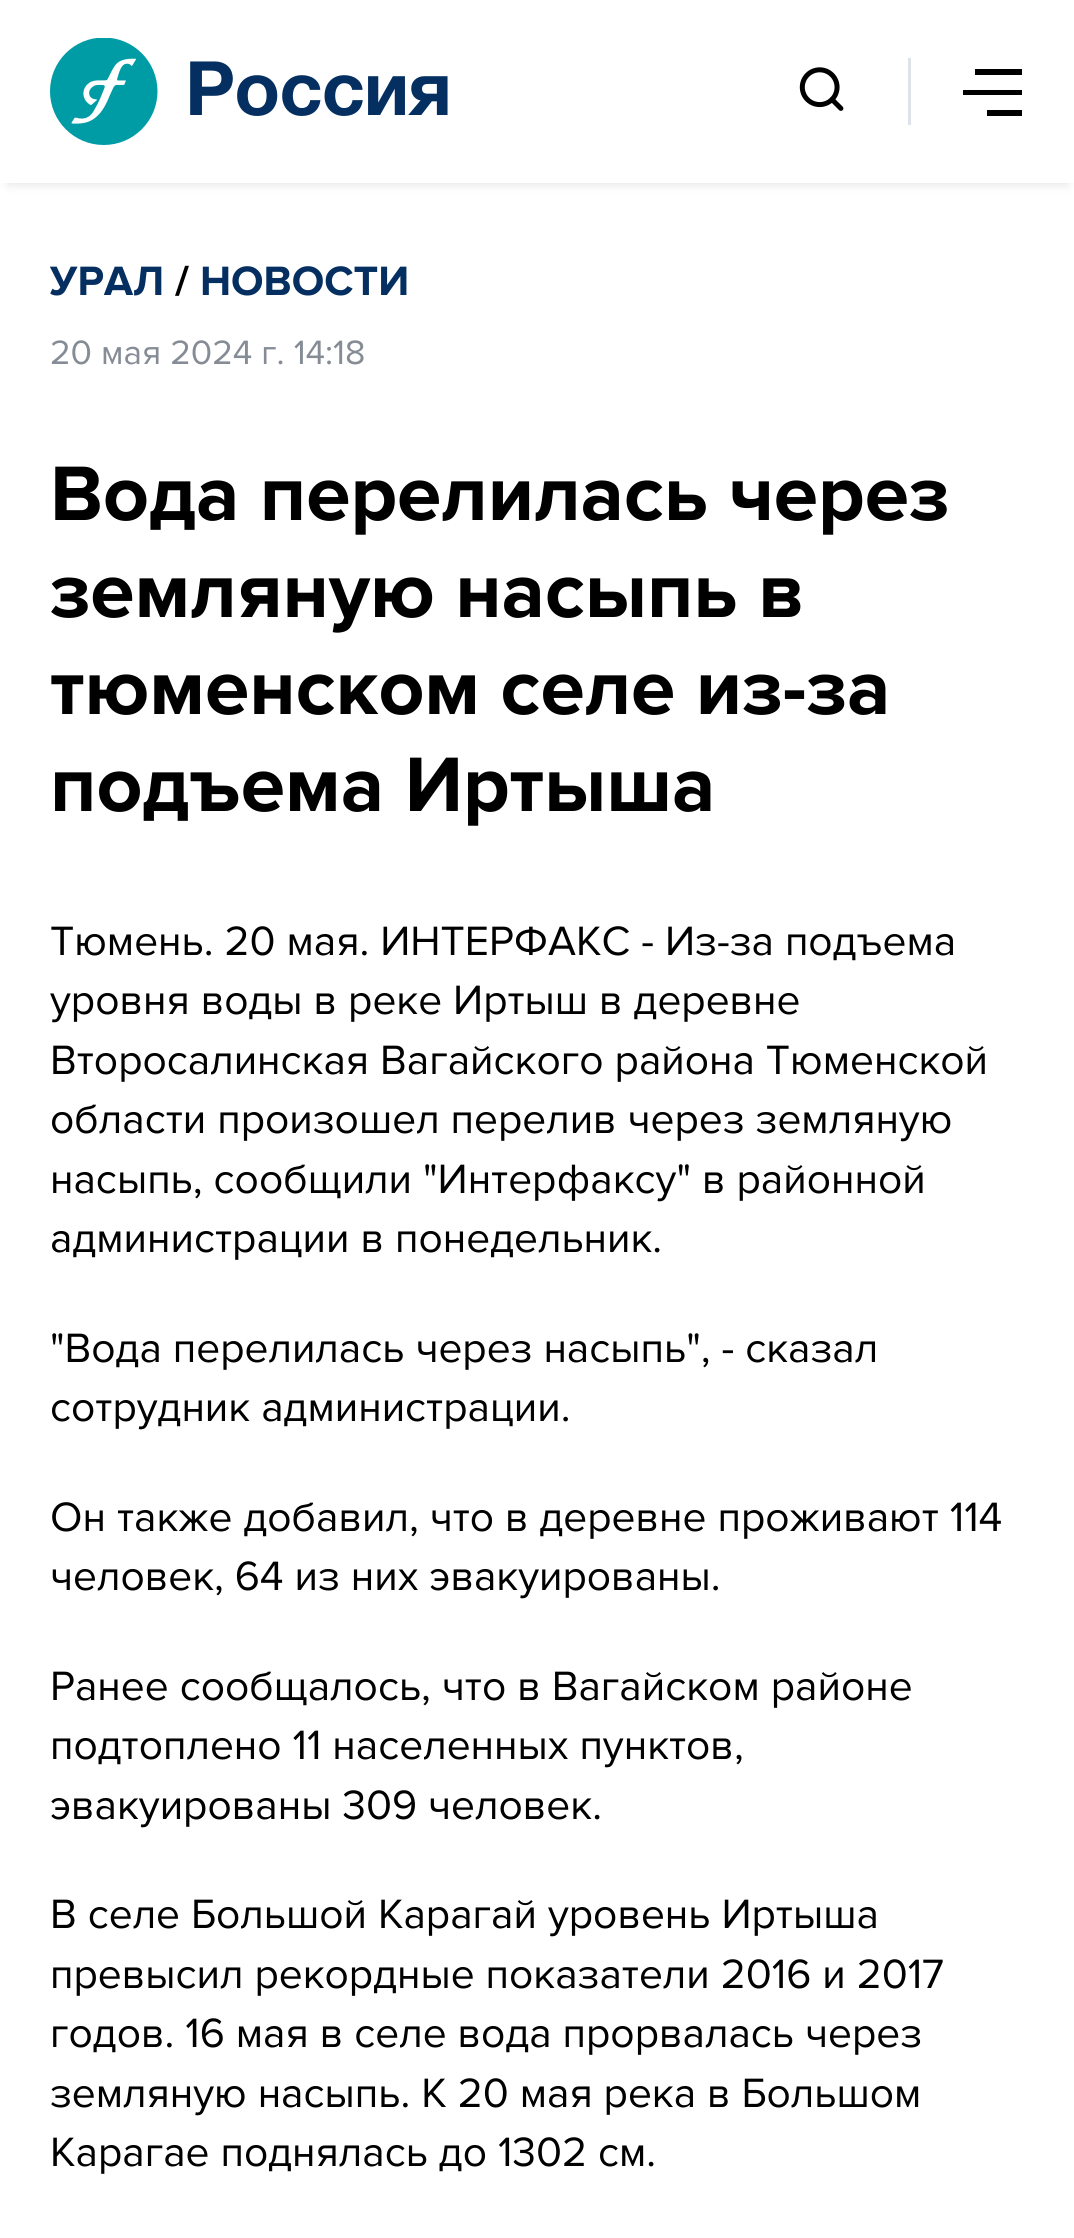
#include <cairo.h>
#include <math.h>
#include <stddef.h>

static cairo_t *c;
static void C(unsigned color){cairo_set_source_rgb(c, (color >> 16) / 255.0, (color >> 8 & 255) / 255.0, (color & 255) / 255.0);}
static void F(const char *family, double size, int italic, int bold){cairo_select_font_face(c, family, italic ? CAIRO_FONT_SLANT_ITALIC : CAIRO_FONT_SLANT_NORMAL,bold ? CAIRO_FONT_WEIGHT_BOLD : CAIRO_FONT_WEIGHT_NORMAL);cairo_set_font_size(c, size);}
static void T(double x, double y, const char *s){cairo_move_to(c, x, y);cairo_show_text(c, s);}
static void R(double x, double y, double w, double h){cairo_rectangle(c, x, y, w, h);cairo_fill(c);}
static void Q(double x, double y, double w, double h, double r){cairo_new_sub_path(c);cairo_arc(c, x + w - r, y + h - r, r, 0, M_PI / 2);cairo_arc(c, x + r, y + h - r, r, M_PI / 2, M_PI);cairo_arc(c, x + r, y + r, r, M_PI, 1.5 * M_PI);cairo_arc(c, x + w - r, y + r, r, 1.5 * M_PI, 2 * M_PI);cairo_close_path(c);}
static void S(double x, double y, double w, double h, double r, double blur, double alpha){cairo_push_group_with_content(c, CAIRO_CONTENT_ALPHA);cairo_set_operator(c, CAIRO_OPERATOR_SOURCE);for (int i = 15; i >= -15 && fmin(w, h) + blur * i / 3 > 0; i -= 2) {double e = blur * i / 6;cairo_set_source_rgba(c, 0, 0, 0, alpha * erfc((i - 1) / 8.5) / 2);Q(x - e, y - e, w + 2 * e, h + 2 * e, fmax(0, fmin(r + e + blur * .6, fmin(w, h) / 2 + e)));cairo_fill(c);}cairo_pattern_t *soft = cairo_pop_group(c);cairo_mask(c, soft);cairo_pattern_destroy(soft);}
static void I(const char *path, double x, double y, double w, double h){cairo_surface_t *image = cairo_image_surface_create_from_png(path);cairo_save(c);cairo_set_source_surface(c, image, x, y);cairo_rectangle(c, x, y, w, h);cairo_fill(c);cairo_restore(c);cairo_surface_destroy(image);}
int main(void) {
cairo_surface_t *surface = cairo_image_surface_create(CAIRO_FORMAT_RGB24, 1074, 2238);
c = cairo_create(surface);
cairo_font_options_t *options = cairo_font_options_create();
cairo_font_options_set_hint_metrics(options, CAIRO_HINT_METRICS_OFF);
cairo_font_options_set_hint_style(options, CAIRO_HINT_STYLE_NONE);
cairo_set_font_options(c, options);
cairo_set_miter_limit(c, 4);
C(0xffffff);
cairo_paint(c);
cairo_save(c);
cairo_set_fill_rule(c,CAIRO_FILL_RULE_EVEN_ODD);
cairo_new_path(c);
cairo_move_to(c,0,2);
cairo_line_to(c,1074,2);
cairo_line_to(c,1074,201);
cairo_line_to(c,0,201);
cairo_close_path(c);
cairo_move_to(c,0,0);
cairo_line_to(c,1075,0);
cairo_line_to(c,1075,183);
cairo_line_to(c,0,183);
cairo_close_path(c);
cairo_clip(c);
C(0x000000);
S(8,18,1060,167,0,5,.1);
cairo_restore(c);
I("1.png",50,38,398,107);
C(0xdee2e9);
R(908,58,3,67);
I("2.png",799,67,45,44);
C(0x000000);
R(975,69,47,6);
R(963,90,59,5);
R(987,110,35,6);
F("Proxima Nova",42.5,0,1);
C(0x042f60);
T(50,295,"УРАЛ");
C(0x000000);
T(175,295,"/");
C(0x042f60);
T(200,295,"НОВОСТИ");
F("Proxima Nova",35,0,0);
C(0x858c95);
T(50,364,"20 мая 2024 г. 14:18");
F("Proxima Nova",80,0,1);
C(0x000000);
T(50,520,"Вода перелилась через");
T(50,617,"земляную насыпь в");
T(50,714,"тюменском селе из-за");
T(50,811,"подъема Иртыша");
F("Proxima Nova",42.5,0,0);
T(50,955,"Тюмень. 20 мая. ИНТЕРФАКС - Из-за подъема");
T(50,1014,"уровня воды в реке Иртыш в деревне");
T(50,1074,"Второсалинская Вагайского района Тюменской");
T(50,1133,"области произошел перелив через земляную");
T(50,1193,"насыпь, сообщили \"Интерфаксу\" в районной");
T(50,1252,"администрации в понедельник.");
T(50,1362,"\"Вода перелилась через насыпь\", - сказал");
T(50,1421,"сотрудник администрации.");
T(50,1531,"Он также добавил, что в деревне проживают 114");
T(50,1590,"человек, 64 из них эвакуированы.");
T(50,1700,"Ранее сообщалось, что в Вагайском районе");
T(50,1759,"подтоплено 11 населенных пунктов,");
T(50,1819,"эвакуированы 309 человек.");
T(50,1928,"В селе Большой Карагай уровень Иртыша");
T(50,1988,"превысил рекордные показатели 2016 и 2017");
T(50,2047,"годов. 16 мая в селе вода прорвалась через");
T(50,2107,"земляную насыпь. К 20 мая река в Большом");
T(50,2166,"Карагае поднялась до 1302 см.");
cairo_surface_write_to_png(surface, "o.png");
cairo_font_options_destroy(options);
cairo_destroy(c);
cairo_surface_destroy(surface);
return 0;
}
